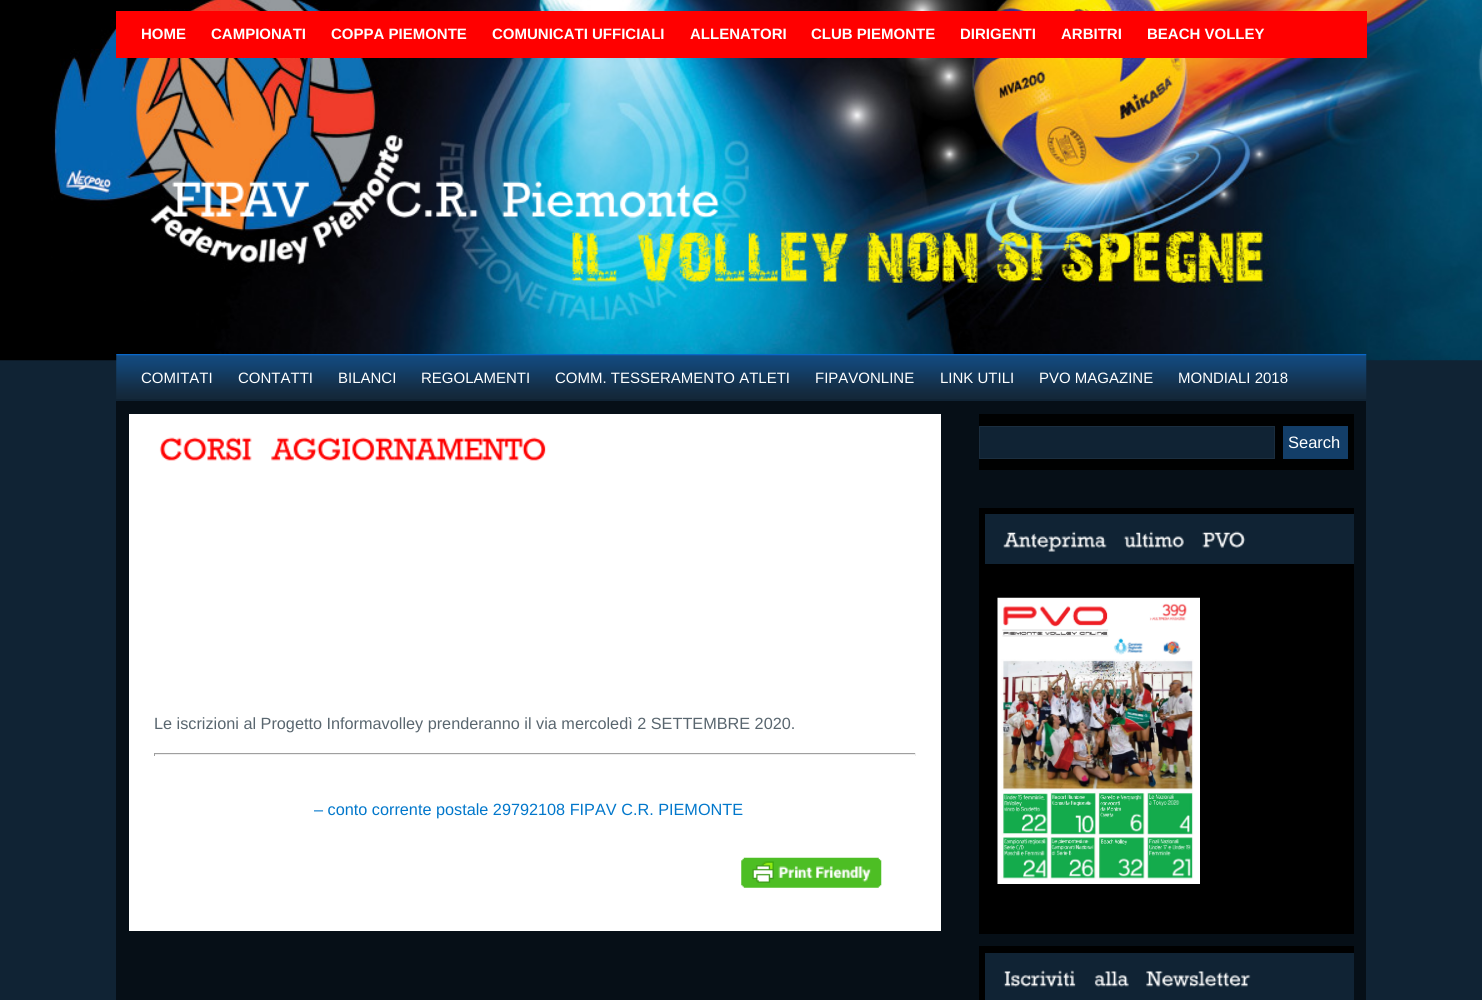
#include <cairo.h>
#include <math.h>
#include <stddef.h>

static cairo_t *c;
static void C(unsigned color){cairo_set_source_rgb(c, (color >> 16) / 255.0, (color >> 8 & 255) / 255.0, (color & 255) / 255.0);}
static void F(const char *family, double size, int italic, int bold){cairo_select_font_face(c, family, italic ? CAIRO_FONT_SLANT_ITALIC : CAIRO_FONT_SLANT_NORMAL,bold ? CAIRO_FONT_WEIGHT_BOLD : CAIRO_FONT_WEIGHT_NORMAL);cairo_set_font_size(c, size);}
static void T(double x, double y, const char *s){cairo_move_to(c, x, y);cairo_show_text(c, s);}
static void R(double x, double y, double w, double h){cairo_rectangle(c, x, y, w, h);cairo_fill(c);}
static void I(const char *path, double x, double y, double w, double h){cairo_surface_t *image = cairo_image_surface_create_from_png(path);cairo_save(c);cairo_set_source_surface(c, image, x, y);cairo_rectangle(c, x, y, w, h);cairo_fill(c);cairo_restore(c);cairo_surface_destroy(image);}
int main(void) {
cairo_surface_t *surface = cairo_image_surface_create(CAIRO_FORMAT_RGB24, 1482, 1000);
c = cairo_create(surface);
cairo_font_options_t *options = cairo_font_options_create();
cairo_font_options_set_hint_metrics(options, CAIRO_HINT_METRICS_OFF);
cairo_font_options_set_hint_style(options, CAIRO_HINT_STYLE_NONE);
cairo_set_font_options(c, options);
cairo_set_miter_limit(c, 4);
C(0x102334);
cairo_paint(c);
I("1.png",0,0,1482,361);
C(0xff0000);
R(116,11,1251,47);
F("Liberation Sans",15,0,1);
C(0xffffff);
T(141,39,"HOME");
T(211,39,"CAMPIONATI");
T(331,39,"COPPA PIEMONTE");
T(492,39,"COMUNICATI UFFICIALI");
T(690,39,"ALLENATORI");
T(811,39,"CLUB PIEMONTE");
T(960,39,"DIRIGENTI");
T(1061,39,"ARBITRI");
T(1147,39,"BEACH VOLLEY");
I("2.png",172,181,137,37);
I("3.png",332,201,28,6);
I("4.png",386,181,92,37);
I("5.png",502,181,217,37);
I("6.png",116,354,1251,45);
F("Liberation Sans",15,0,0);
T(141,383,"COMITATI");
T(238,383,"CONTATTI");
T(338,383,"BILANCI");
T(421,383,"REGOLAMENTI");
T(555,383,"COMM. TESSERAMENTO ATLETI");
T(815,383,"FIPAVONLINE");
T(940,383,"LINK UTILI");
T(1039,383,"PVO MAGAZINE");
T(1178,383,"MONDIALI 2018");
C(0x060f17);
R(116,401,1250,599);
C(0x000101);
R(979,414,375,56);
C(0x102334);
cairo_rectangle(c,979.5,426.5,295,32);
cairo_fill_preserve(c);
C(0x1b2e3f);
cairo_set_line_width(c,1);
cairo_stroke(c);
C(0x133e68);
R(1283,426,65,33);
F("Liberation Sans",16.5,0,0);
C(0xffffff);
T(1288,448,"Search");
C(0x000000);
R(979,508,375,426);
C(0x102334);
R(985,514,369,50);
I("7.png",1003,531,104,21);
I("8.png",1123,531,61,17);
I("9.png",1202,531,44,17);
I("10.png",997,597,203,287);
C(0x000000);
R(979,946,375,54);
C(0x102334);
R(985,953,369,47);
I("11.png",1003,970,73,17);
I("12.png",1094,971,35,16);
I("13.png",1146,971,105,16);
C(0xffffff);
R(129,414,812,517);
I("14.png",159,437,93,24);
I("15.png",271,437,275,24);
F("Liberation Sans",16.25,0,0);
C(0x59666f);
T(154,729,"Le iscrizioni al Progetto Informavolley prenderanno il via mercoledì 2 SETTEMBRE 2020.");
C(0x9f9f9f);
R(154,753,762,1);
C(0xeeeeee);
R(915,753,1,3);
R(154,754,762,1);
C(0x9f9f9f);
R(154,753,1,3);
C(0x0177cb);
T(314,815,"– conto corrente postale 29792108 FIPAV C.R. PIEMONTE");
I("16.png",741,857,141,31);
cairo_surface_write_to_png(surface, "o.png");
cairo_font_options_destroy(options);
cairo_destroy(c);
cairo_surface_destroy(surface);
return 0;
}
